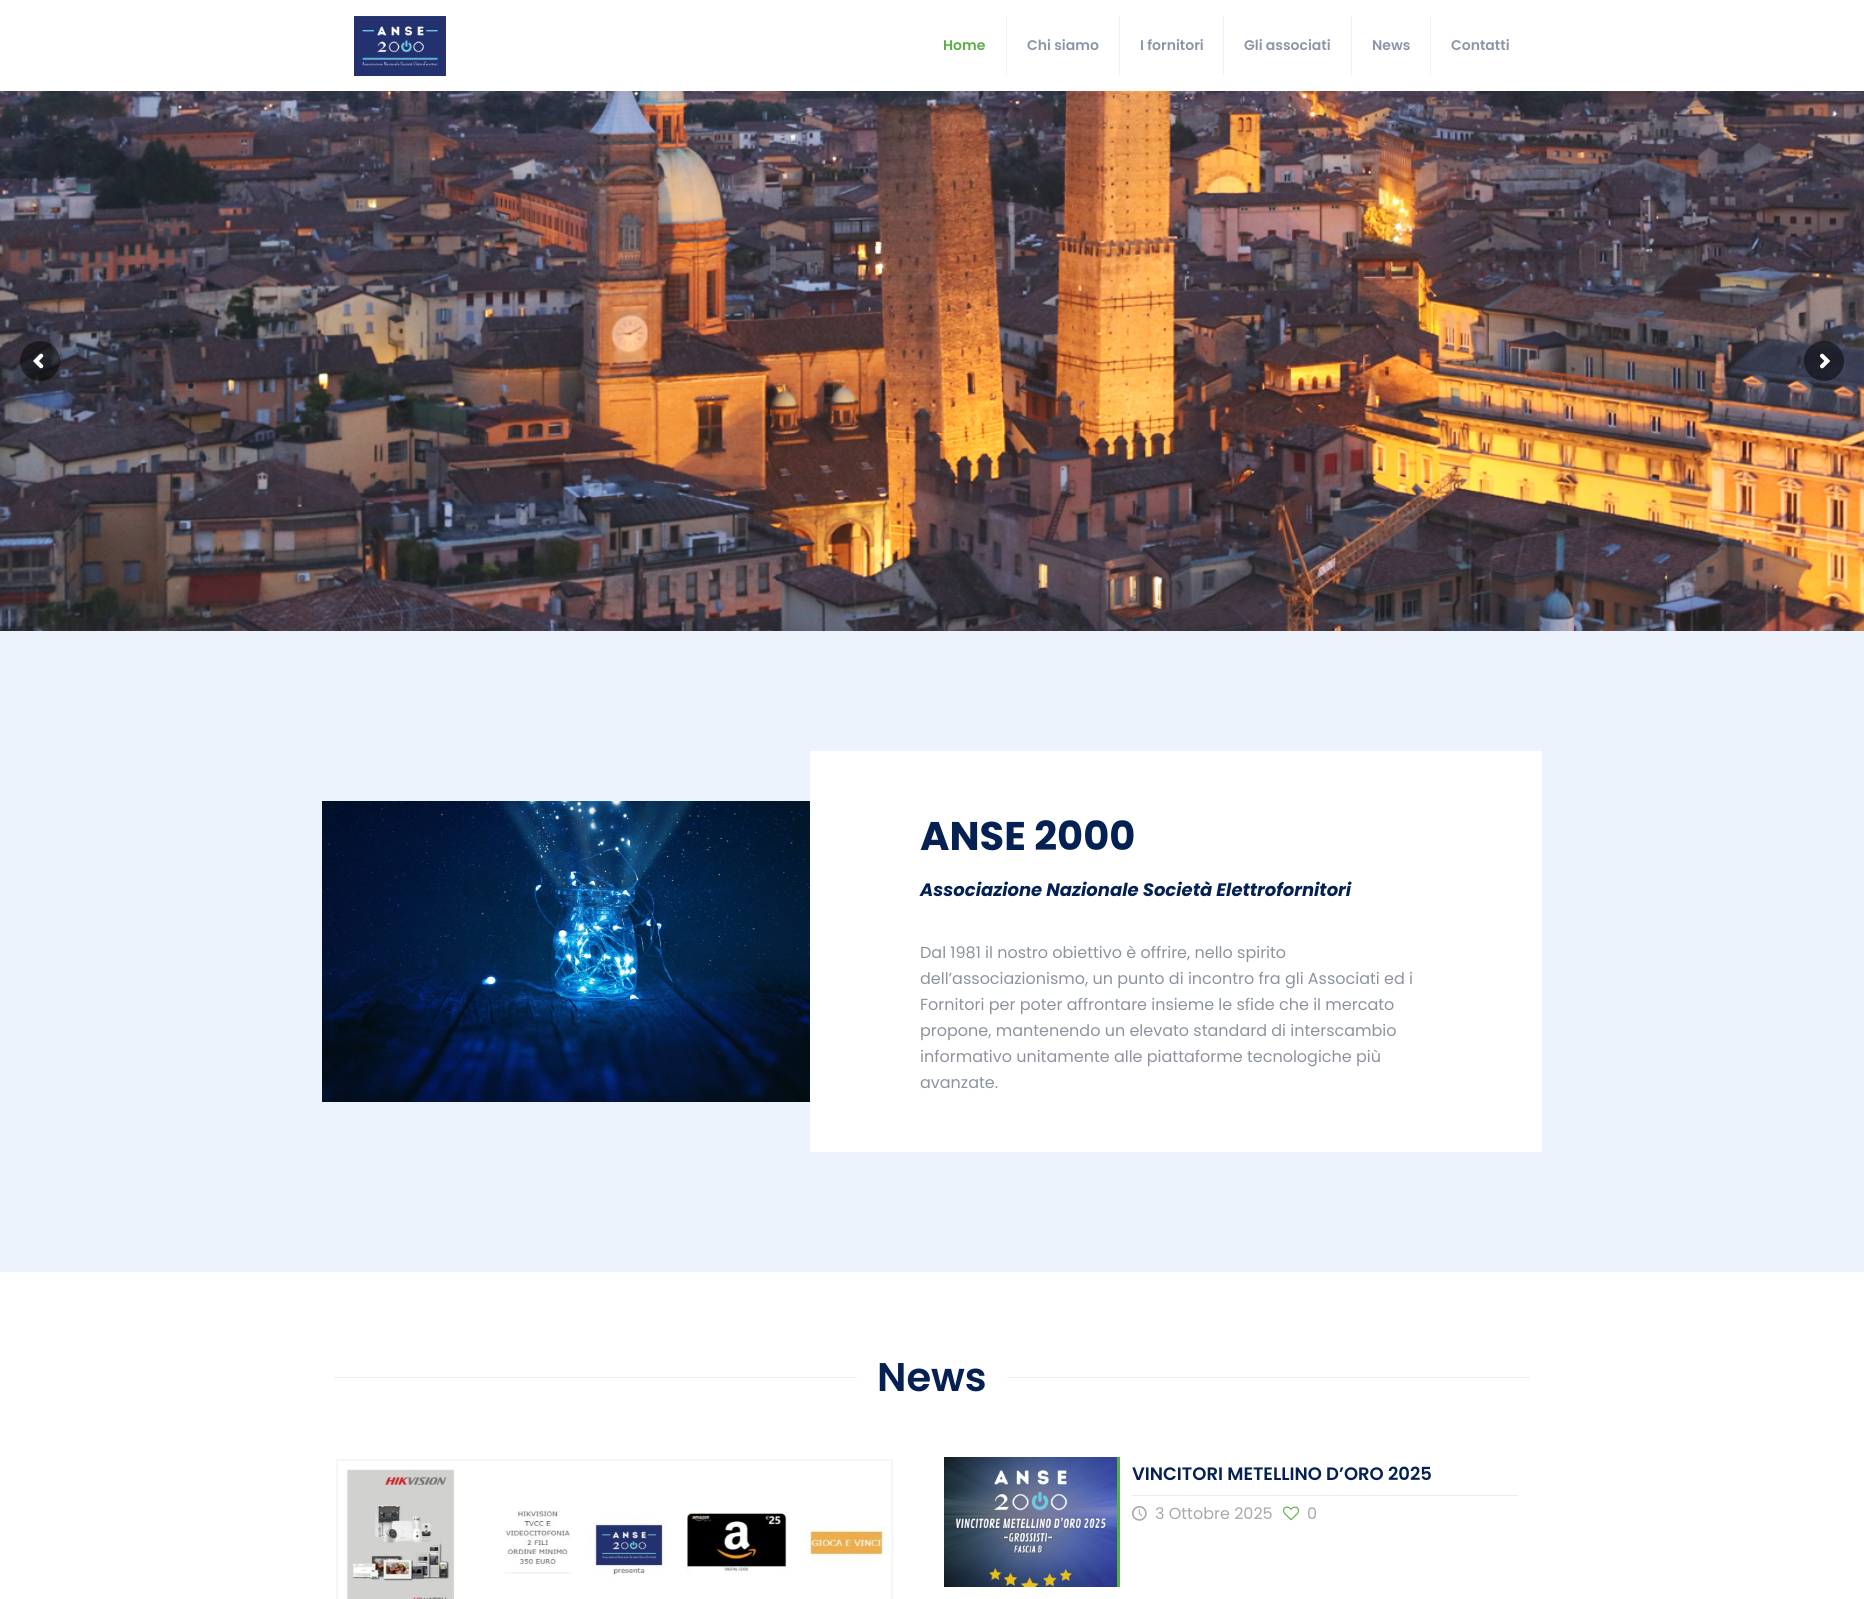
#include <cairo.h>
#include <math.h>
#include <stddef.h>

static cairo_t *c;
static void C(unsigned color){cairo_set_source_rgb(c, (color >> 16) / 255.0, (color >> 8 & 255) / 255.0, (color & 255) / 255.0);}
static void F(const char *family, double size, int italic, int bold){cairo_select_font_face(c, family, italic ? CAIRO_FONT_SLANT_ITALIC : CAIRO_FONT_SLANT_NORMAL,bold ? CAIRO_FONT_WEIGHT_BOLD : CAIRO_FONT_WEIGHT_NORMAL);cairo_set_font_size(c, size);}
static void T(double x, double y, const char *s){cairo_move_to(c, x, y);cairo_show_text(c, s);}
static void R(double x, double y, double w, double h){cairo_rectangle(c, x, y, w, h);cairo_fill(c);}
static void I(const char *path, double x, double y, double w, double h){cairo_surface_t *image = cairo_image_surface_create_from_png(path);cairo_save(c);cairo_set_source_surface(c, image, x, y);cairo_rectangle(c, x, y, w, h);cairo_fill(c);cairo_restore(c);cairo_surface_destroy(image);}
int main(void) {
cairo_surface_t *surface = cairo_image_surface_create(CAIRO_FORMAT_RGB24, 1864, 1599);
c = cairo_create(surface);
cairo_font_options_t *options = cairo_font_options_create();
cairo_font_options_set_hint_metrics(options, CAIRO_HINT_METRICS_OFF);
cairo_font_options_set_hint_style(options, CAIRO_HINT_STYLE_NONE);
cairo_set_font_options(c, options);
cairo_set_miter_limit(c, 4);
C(0xffffff);
cairo_paint(c);
I("1.png",354,16,92,60);
C(0xf2f2f2);
R(1006,15,1,60);
F("Poppins SemiBold",14,0,0);
C(0x57b046);
T(943,50,"Home");
C(0xf2f2f2);
R(1119,15,1,60);
C(0x8b95a6);
T(1027,50,"Chi siamo");
C(0xf2f2f2);
R(1223,15,1,60);
C(0x8b95a6);
T(1140,50,"I fornitori");
C(0xf2f2f2);
R(1351,15,1,60);
C(0x8b95a6);
T(1244,50,"Gli associati");
C(0xf2f2f2);
R(1430,15,1,60);
C(0x8b95a6);
T(1372,50,"News");
T(1451,50,"Contatti");
I("2.png",0,91,1864,540);
cairo_set_source_rgba(c,0,0,0,0.5);
cairo_arc(c,40,361,20,0,2 * M_PI);
cairo_fill(c);
I("3.png",33,353,11,16);
cairo_arc(c,1824,361,20,0,2 * M_PI);
cairo_fill(c);
I("4.png",1820,353,11,16);
cairo_set_source_rgba(c,0,0,0,0.15);
R(0,626,40,5);
C(0xecf3fd);
R(0,631,1864,641);
I("5.png",322,801,488,301);
C(0xffffff);
R(810,751,732,401);
F("Poppins",40,0,1);
C(0x052154);
T(920,850,"ANSE 2000");
F("Poppins",18,1,1);
T(920,896,"Associazione Nazionale Società Elettrofornitori");
F("Poppins",16,0,0);
C(0x8d939d);
T(920,958,"Dal 1981 il nostro obiettivo è offrire, nello spirito");
T(920,984,"dell’associazionismo, un punto di incontro fra gli Associati ed i");
T(920,1010,"Fornitori per poter affrontare insieme le sfide che il mercato");
T(920,1036,"propone, mantenendo un elevato standard di interscambio");
T(920,1062,"informativo unitamente alle piattaforme tecnologiche più");
T(920,1088,"avanzate.");
C(0xebf0f8);
R(334,1377,523,1);
F("Poppins SemiBold",40,0,0);
C(0x052154);
T(877,1391,"News");
C(0xebf0f8);
R(1007,1377,523,1);
I("6.png",336,1459,557,140);
C(0x57b046);
R(1117,1457,3,130);
I("7.png",944,1457,173,130);
F("Poppins SemiBold",18,0,0);
C(0x052154);
T(1132,1480,"VINCITORI METELLINO D’ORO 2025");
C(0xebebeb);
R(1132,1495,386,1);
I("8.png",1132,1506,15,15);
F("Poppins",16,0,0);
C(0xa8a8a8);
T(1155,1519,"3 Ottobre 2025");
I("9.png",1283,1506,16,15);
T(1307,1519,"0");
cairo_surface_write_to_png(surface, "o.png");
cairo_font_options_destroy(options);
cairo_destroy(c);
cairo_surface_destroy(surface);
return 0;
}
